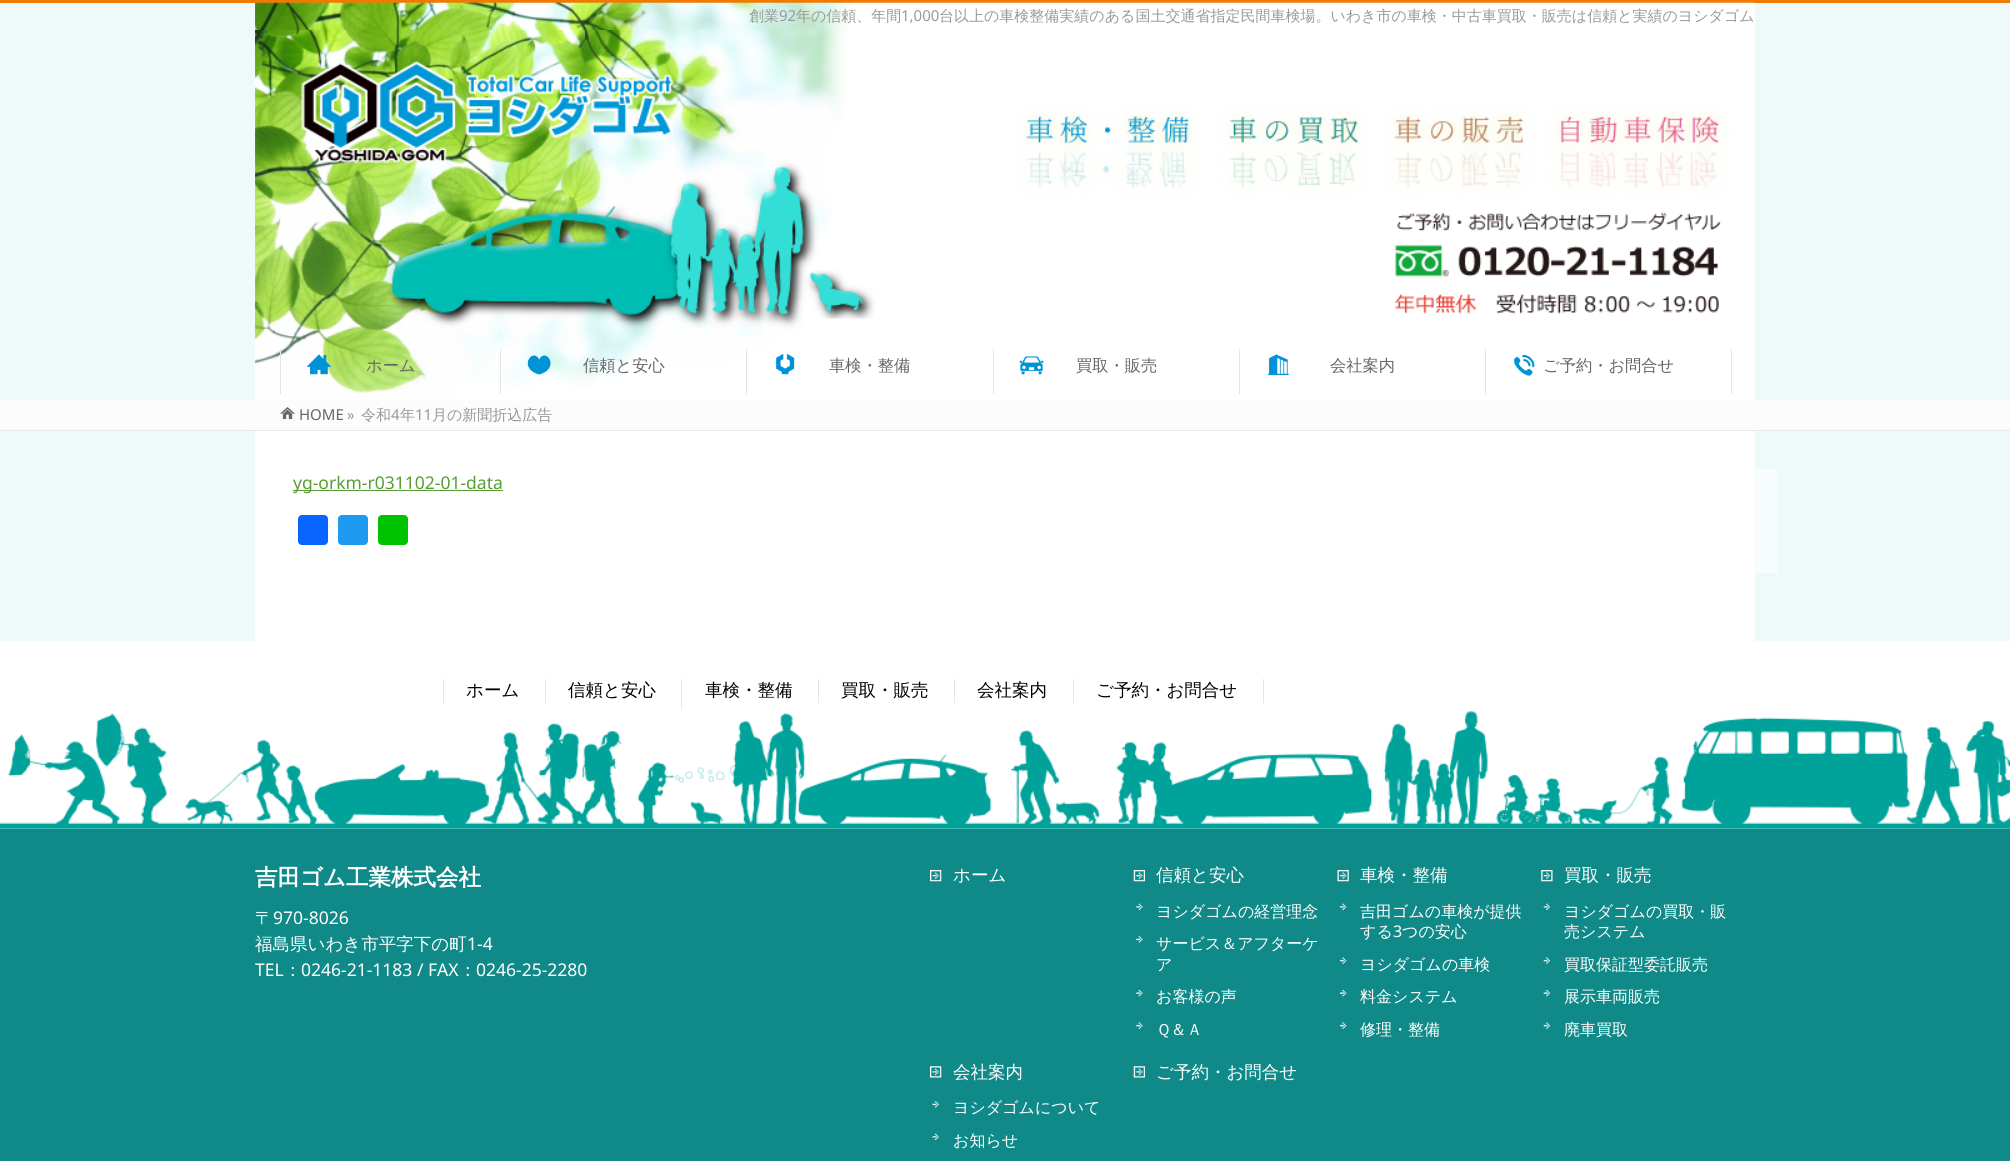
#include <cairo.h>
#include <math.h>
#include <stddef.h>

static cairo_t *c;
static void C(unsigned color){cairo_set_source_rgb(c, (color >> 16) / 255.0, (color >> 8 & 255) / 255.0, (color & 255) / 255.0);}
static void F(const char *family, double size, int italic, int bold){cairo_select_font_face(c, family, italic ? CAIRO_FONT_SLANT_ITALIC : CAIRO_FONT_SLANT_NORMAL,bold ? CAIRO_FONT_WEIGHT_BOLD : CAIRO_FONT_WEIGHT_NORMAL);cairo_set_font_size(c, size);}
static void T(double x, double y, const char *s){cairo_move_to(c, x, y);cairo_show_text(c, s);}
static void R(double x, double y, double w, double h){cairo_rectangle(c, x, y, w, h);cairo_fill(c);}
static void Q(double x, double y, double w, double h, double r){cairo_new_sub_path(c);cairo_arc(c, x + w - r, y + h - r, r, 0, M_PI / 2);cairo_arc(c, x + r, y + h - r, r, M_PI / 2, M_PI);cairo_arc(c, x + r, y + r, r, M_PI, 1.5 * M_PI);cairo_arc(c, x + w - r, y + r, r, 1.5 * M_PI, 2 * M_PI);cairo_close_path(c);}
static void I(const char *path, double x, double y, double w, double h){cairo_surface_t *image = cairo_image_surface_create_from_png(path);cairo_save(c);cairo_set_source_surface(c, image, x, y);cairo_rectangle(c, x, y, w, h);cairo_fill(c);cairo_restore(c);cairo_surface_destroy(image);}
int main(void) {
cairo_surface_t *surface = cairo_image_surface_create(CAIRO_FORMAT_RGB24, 2010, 1161);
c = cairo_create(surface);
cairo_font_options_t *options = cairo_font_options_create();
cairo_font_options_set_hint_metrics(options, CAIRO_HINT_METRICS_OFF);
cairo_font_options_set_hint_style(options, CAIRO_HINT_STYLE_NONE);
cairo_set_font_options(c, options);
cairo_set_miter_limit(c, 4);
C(0xeefaf9);
cairo_paint(c);
C(0xf7fdfc);
R(1755,469,23,104);
C(0xef7a00);
R(0,0,2010,3);
I("1.png",255,2,1500,28);
F("WenQuanYi Zen Hei Medium",15,0,0);
C(0x999999);
T(749,21,"創業");
F("Noto Sans",15,0,0);
T(779,21,"92");
F("WenQuanYi Zen Hei Medium",15,0,0);
T(796,21,"年の信頼、年間");
F("Noto Sans",15,0,0);
T(901,21,"1,000");
F("WenQuanYi Zen Hei Medium",15,0,0);
T(939,21,"台以上の車検整備実績のある国土交通省指定民間車検場。いわき市の車検・中古車買取・販売は信頼と実績のヨシダゴム");
I("2.png",255,30,1500,370);
I("3.png",301,61,373,102);
I("4.png",307,354,24,21);
C(0xe5e5e5);
R(500,349,1,45);
R(280,349,1,45);
F("WenQuanYi Zen Hei Medium",16.25,0,0);
C(0x666666);
T(366,371,"ホーム");
I("5.png",527,355,24,20);
C(0xe5e5e5);
R(746,349,1,45);
C(0x666666);
T(583,371,"信頼と安心");
I("6.png",775,354,20,21);
C(0xe5e5e5);
R(993,349,1,45);
C(0x666666);
T(829,371,"車検・整備");
I("7.png",1019,356,25,19);
C(0xe5e5e5);
R(1239,349,1,45);
C(0x666666);
T(1076,371,"買取・販売");
I("8.png",1267,354,22,22);
C(0xe5e5e5);
R(1485,349,1,45);
C(0x666666);
T(1330,371,"会社案内");
I("9.png",1513,354,22,22);
C(0xe5e5e5);
R(1731,349,1,45);
C(0x666666);
T(1543,371,"ご予約・お問合せ");
C(0xfcfcfc);
R(0,400,2010,30);
I("10.png",280,407,15,12);
F("Noto Sans",15,0,0);
C(0x666666);
T(299,420,"HOME");
C(0x999999);
T(347,420,"»");
F("WenQuanYi Zen Hei Medium",15,0,0);
T(361,420,"令和");
F("Noto Sans",15,0,0);
T(391,420,"4");
F("WenQuanYi Zen Hei Medium",15,0,0);
T(400,420,"年");
F("Noto Sans",15,0,0);
T(415,420,"11");
F("WenQuanYi Zen Hei Medium",15,0,0);
T(432,420,"月の新聞折込広告");
C(0xe9e9e9);
R(0,430,2010,1);
C(0xffffff);
R(255,431,1500,210);
C(0x589d34);
R(293,490,210,1);
cairo_save(c);
cairo_rectangle(c,293,469,1485,104);
cairo_clip(c);
F("Noto Sans",17.5,0,0);
T(293,489,"yg-orkm-r031102-01-data");
cairo_restore(c);
C(0x0866ff);
Q(298,515,30,30,4);
cairo_fill(c);
C(0x1d9bf0);
Q(338,515,30,30,4);
cairo_fill(c);
C(0x00c300);
Q(378,515,30,30,4);
cairo_fill(c);
I("11.png",0,641,2010,188);
C(0xe5e5e5);
R(545,679,1,24);
R(443,679,1,24);
F("WenQuanYi Zen Hei Medium",17.5,0,0);
C(0x000000);
T(466,696,"ホーム");
C(0xe5e5e5);
R(681,679,1,30);
C(0x000000);
T(568,696,"信頼と安心");
C(0xe5e5e5);
R(818,679,1,24);
C(0x000000);
T(705,696,"車検・整備");
C(0xe5e5e5);
R(954,679,1,24);
C(0x000000);
T(841,696,"買取・販売");
C(0xe5e5e5);
R(1073,679,1,24);
C(0x000000);
T(977,696,"会社案内");
C(0xe5e5e5);
R(1263,679,1,24);
C(0x000000);
T(1096,696,"ご予約・お問合せ");
C(0x108a89);
R(0,829,2010,332);
F("WenQuanYi Zen Hei",22.5,0,1);
C(0xffffff);
T(255,885,"吉田ゴム工業株式会社");
F("WenQuanYi Zen Hei Medium",17.5,0,0);
T(255,924,"〒");
F("Noto Sans",17.5,0,0);
T(273,924,"970-8026");
F("WenQuanYi Zen Hei Medium",17.5,0,0);
T(255,950,"福島県いわき市平字下の町");
F("Noto Sans",17.5,0,0);
T(467,950,"1-4");
T(255,976,"TEL");
F("WenQuanYi Zen Hei Medium",17.5,0,0);
T(284,976,"：");
F("Noto Sans",17.5,0,0);
T(301,976,"0246-21-1183 / FAX");
F("WenQuanYi Zen Hei Medium",17.5,0,0);
T(459,976,"：");
F("Noto Sans",17.5,0,0);
T(476,976,"0246-25-2280");
I("12.png",930,870,12,12);
F("WenQuanYi Zen Hei Medium",17.5,0,0);
T(953,881,"ホーム");
I("13.png",1133,870,12,12);
T(1156,881,"信頼と安心");
I("14.png",1136,903,7,7);
F("WenQuanYi Zen Hei Medium",16,0,0);
T(1156,917,"ヨシダゴムの経営理念");
I("15.png",1136,936,7,7);
T(1156,949,"サービス＆アフターケ");
T(1156,970,"ア");
I("16.png",1136,990,7,7);
T(1156,1002,"お客様の声");
I("17.png",1136,1022,7,7);
T(1156,1035,"Ｑ＆Ａ");
I("18.png",1337,870,12,12);
F("WenQuanYi Zen Hei Medium",17.5,0,0);
T(1360,881,"車検・整備");
I("19.png",1340,903,7,7);
F("WenQuanYi Zen Hei Medium",16,0,0);
T(1360,917,"吉田ゴムの車検が提供");
T(1360,937,"する");
F("Noto Sans",16,0,0);
T(1393,937,"3");
F("WenQuanYi Zen Hei Medium",16,0,0);
T(1402,937,"つの安心");
I("20.png",1340,957,7,7);
T(1360,970,"ヨシダゴムの車検");
I("21.png",1340,990,7,7);
T(1360,1002,"料金システム");
I("22.png",1340,1022,7,7);
T(1360,1035,"修理・整備");
I("23.png",1541,870,12,12);
F("WenQuanYi Zen Hei Medium",17.5,0,0);
T(1564,881,"買取・販売");
I("24.png",1543,903,7,7);
F("WenQuanYi Zen Hei Medium",16,0,0);
T(1564,917,"ヨシダゴムの買取・販");
T(1564,937,"売システム");
I("25.png",1543,957,7,7);
T(1564,970,"買取保証型委託販売");
I("26.png",1543,990,7,7);
T(1564,1002,"展示車両販売");
I("27.png",1543,1022,7,7);
T(1564,1035,"廃車買取");
I("28.png",930,1066,12,12);
F("WenQuanYi Zen Hei Medium",17.5,0,0);
T(953,1078,"会社案内");
I("29.png",932,1101,7,7);
F("WenQuanYi Zen Hei Medium",16,0,0);
T(953,1113,"ヨシダゴムについて");
I("30.png",932,1133,7,7);
T(953,1146,"お知らせ");
I("31.png",1133,1066,12,12);
F("WenQuanYi Zen Hei Medium",17.5,0,0);
T(1156,1078,"ご予約・お問合せ");
cairo_surface_write_to_png(surface, "o.png");
cairo_font_options_destroy(options);
cairo_destroy(c);
cairo_surface_destroy(surface);
return 0;
}
